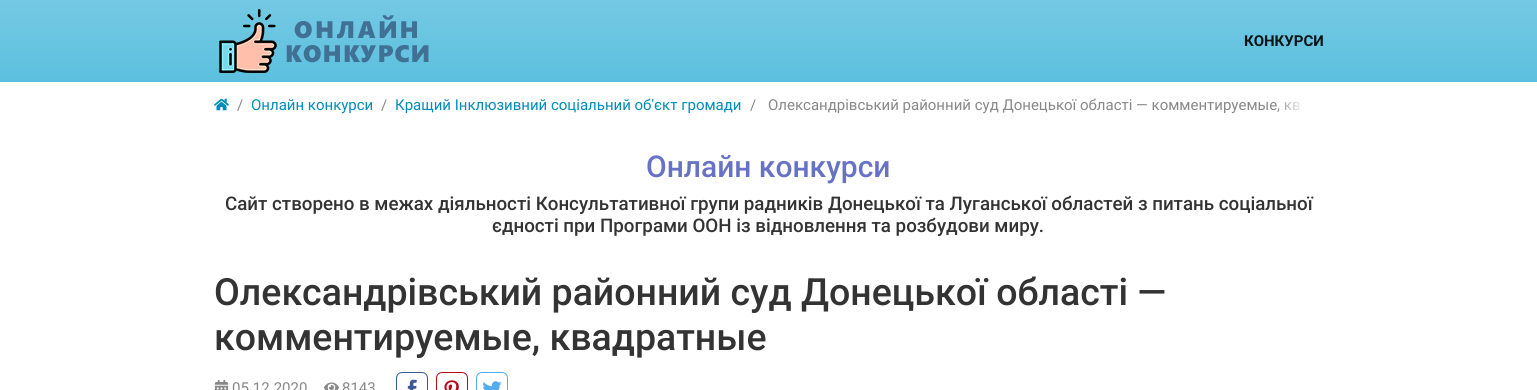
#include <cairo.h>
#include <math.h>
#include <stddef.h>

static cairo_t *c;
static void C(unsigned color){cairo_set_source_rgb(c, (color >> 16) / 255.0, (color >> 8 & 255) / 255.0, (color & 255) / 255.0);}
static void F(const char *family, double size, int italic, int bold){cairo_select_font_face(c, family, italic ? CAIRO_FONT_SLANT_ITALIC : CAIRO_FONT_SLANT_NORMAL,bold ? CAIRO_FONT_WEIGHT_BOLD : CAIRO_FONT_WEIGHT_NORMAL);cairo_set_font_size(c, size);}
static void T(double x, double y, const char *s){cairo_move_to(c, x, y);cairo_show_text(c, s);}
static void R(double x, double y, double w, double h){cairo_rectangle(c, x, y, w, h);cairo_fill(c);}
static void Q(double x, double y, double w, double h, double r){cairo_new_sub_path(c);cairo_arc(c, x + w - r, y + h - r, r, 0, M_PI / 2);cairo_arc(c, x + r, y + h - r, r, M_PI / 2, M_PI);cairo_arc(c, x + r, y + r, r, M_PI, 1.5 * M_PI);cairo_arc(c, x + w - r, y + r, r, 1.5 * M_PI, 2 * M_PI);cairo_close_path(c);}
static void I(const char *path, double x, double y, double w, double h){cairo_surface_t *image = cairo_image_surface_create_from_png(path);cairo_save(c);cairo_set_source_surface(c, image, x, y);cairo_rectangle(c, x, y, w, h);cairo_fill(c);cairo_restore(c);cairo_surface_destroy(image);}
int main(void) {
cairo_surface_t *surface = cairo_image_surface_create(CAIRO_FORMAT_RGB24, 1537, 390);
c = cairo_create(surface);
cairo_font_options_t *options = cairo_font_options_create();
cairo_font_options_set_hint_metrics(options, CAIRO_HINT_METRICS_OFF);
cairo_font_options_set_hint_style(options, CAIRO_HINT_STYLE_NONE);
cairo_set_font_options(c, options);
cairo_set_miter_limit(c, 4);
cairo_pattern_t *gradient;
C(0xffffff);
cairo_paint(c);
gradient = cairo_pattern_create_linear(769,0,769,82);
cairo_pattern_add_color_stop_rgba(gradient,0,0.455,0.788,0.89,1);
cairo_pattern_add_color_stop_rgba(gradient,1,0.357,0.753,0.871,1);
cairo_set_source(c,gradient);
cairo_pattern_destroy(gradient);
R(0,0,1537,82);
I("1.png",219,9,210,64);
F("Roboto",15,0,1);
C(0x0a1416);
T(1244,46,"КОНКУРСИ");
I("2.png",214,98,15,13);
F("Roboto",15,0,0);
C(0x888888);
T(381,110,"/");
C(0x008cba);
T(395,110,"Кращий Інклюзивний соціальний об'єкт громади");
C(0x888888);
T(768,110,"Олександрівський районний суд Донецької області — комментируемые, кв");
gradient = cairo_pattern_create_linear(1324,106,1276,106);
cairo_pattern_add_color_stop_rgba(gradient,.4,1,1,1,1);
cairo_pattern_add_color_stop_rgba(gradient,1,1,1,1,0);
cairo_set_source(c,gradient);
cairo_pattern_destroy(gradient);
cairo_new_path(c);
cairo_move_to(c,1276,82);
cairo_line_to(c,1320,82);
cairo_curve_to(c,1322,82,1324,84,1324,86);
cairo_line_to(c,1324,125);
cairo_curve_to(c,1324,127,1322,129,1320,129);
cairo_line_to(c,1276,129);
cairo_close_path(c);
cairo_fill(c);
C(0x888888);
T(237,110,"/");
C(0x008cba);
T(251,110,"Онлайн конкурси");
C(0x888888);
T(750,110,"/");
F("Roboto Medium",30,0,0);
C(0x6872c5);
T(646,177,"Онлайн конкурси");
F("Roboto Medium",18.75,0,0);
C(0x333333);
T(225,210,"Сайт створено в межах діяльності Консультативної групи радників Донецької та Луганської областей з питань соціальної");
T(492,232,"єдності при Програми ООН із відновлення та розбудови миру.");
F("Roboto Medium",37.5,0,0);
T(214,305,"Олександрівський районний суд Донецької області —");
T(214,350,"комментируемые, квадратные");
I("3.png",214,380,15,10);
F("Roboto",15,0,0);
C(0x888888);
T(232,393,"05.12.2020");
I("4.png",324,382,15,8);
T(342,393,"8143");
Q(396.5,372.5,31,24,5.5);
C(0x3b5998);
cairo_set_line_width(c,1);
cairo_stroke(c);
I("5.png",407,379,10,11);
Q(436.5,372.5,31,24,5.5);
C(0xbd081c);
cairo_stroke(c);
I("6.png",444,380,15,10);
Q(476.5,372.5,31,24,5.5);
C(0x55acee);
cairo_stroke(c);
I("7.png",483,381,19,9);
cairo_surface_write_to_png(surface, "o.png");
cairo_font_options_destroy(options);
cairo_destroy(c);
cairo_surface_destroy(surface);
return 0;
}
